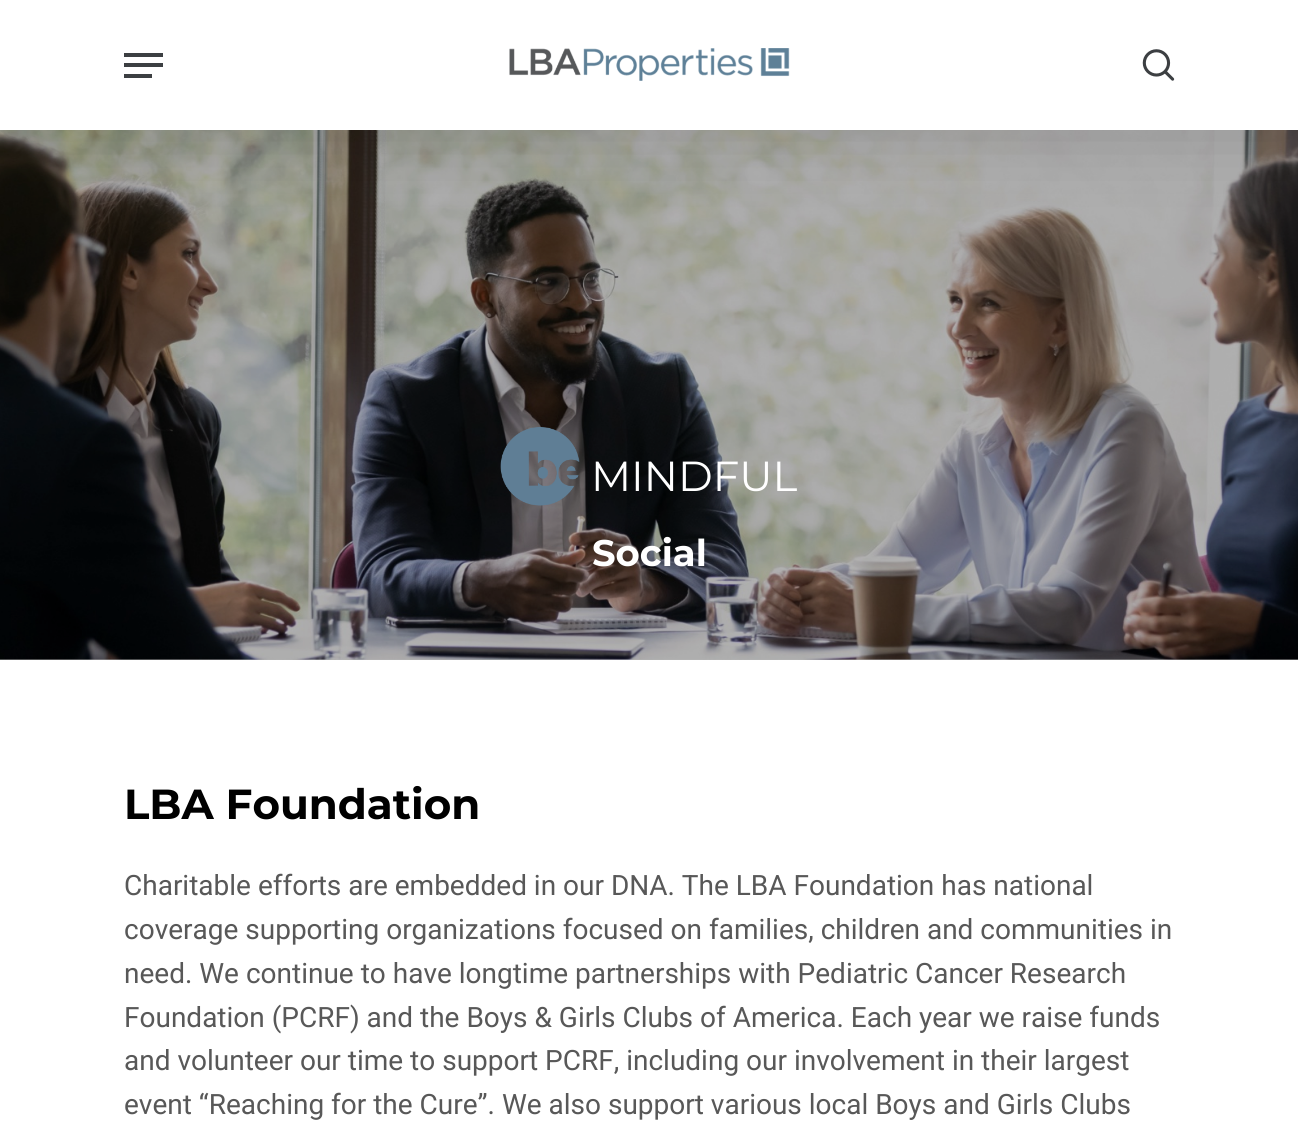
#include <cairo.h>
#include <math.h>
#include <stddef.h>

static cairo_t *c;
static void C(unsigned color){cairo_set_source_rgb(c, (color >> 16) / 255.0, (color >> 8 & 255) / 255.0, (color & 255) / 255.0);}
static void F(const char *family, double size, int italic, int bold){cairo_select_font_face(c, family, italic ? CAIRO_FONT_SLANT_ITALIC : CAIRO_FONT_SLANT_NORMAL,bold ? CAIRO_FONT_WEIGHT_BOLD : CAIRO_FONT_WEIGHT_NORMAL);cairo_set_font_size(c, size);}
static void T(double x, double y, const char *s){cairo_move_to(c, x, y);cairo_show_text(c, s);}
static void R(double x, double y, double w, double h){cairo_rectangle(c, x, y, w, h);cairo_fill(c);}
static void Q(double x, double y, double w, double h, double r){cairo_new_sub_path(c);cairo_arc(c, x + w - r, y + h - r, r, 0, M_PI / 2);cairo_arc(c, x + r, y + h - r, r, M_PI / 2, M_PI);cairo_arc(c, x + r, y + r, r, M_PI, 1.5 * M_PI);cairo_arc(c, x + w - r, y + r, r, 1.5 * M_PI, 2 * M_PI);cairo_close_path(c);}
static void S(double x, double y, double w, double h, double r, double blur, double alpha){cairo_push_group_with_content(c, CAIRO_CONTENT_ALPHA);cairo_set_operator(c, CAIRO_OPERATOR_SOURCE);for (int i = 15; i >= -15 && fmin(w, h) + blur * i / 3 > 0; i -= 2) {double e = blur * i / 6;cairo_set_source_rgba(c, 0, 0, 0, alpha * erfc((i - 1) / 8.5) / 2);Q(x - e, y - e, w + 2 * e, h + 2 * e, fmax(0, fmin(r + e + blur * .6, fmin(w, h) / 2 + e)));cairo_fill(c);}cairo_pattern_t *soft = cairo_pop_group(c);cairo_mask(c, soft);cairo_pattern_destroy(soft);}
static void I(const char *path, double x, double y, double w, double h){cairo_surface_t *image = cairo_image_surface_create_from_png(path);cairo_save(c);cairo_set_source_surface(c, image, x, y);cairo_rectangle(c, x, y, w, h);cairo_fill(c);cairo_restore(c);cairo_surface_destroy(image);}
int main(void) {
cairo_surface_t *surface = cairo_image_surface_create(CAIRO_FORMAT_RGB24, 1298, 1122);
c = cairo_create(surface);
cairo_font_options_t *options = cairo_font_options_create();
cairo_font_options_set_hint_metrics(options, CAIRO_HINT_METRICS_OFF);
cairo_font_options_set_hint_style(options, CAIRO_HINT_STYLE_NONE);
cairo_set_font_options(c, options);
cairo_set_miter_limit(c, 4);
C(0xffffff);
cairo_paint(c);
C(0xb3b3b3);
R(0,659,1298,1);
I("3.png",0,130,1298,530);
C(0x000000);
S(0,5,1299,130,0,39.5,.15);
C(0xffffff);
R(0,0,1298,130);
I("1.png",509,48,281,33);
C(0x3c3f42);
R(124,53,39,4);
R(124,74,28,4);
R(124,63,39,4);
I("2.png",1142,49,33,32);
I("4.png",500,427,80,79);
F("Montserrat",42,0,0);
C(0xffffff);
T(591,491,"MINDFUL");
F("Montserrat",37,0,1);
T(592,566,"Social");
F("Montserrat",42,0,1);
C(0x000000);
T(124,819,"LBA Foundation");
F("Roboto",28,0,0);
C(0x585858);
T(124,895,"Charitable efforts are embedded in our DNA. The LBA Foundation has national");
T(124,939,"coverage supporting organizations focused on families, children and communities in");
T(124,983,"need. We continue to have longtime partnerships with Pediatric Cancer Research");
T(124,1027,"Foundation (PCRF) and the Boys & Girls Clubs of America. Each year we raise funds");
T(124,1070,"and volunteer our time to support PCRF, including our involvement in their largest");
T(124,1114,"event “Reaching for the Cure”. We also support various local Boys and Girls Clubs");
cairo_surface_write_to_png(surface, "o.png");
cairo_font_options_destroy(options);
cairo_destroy(c);
cairo_surface_destroy(surface);
return 0;
}
